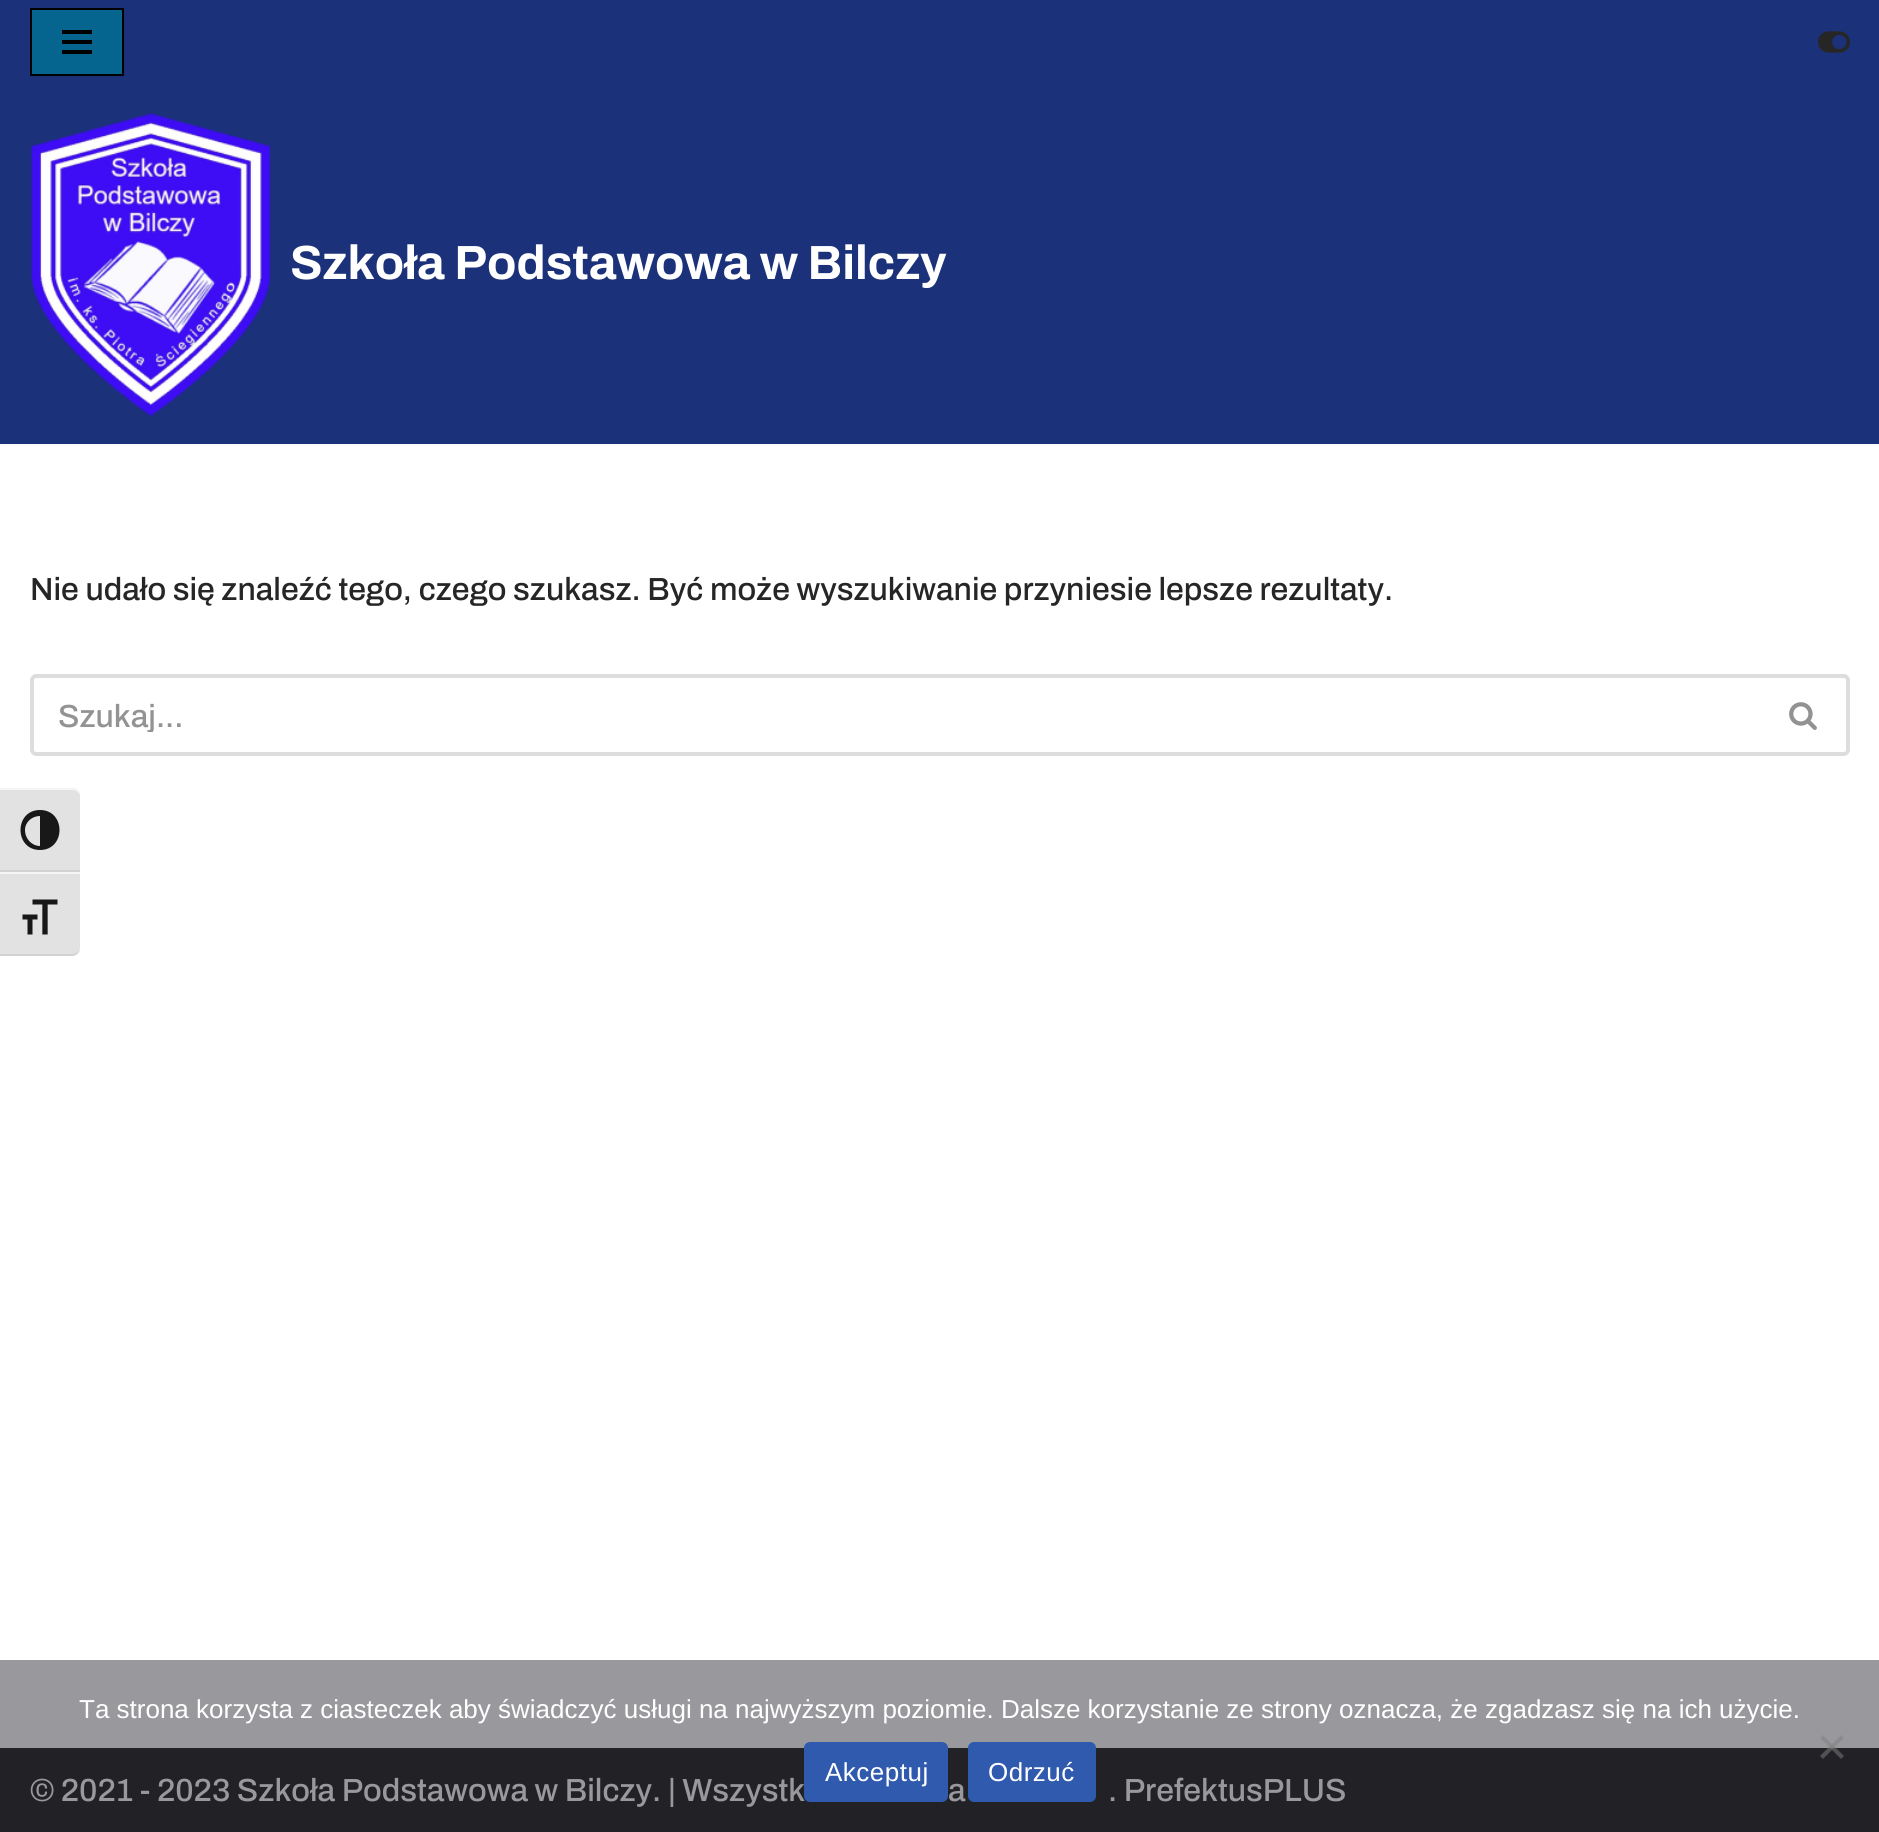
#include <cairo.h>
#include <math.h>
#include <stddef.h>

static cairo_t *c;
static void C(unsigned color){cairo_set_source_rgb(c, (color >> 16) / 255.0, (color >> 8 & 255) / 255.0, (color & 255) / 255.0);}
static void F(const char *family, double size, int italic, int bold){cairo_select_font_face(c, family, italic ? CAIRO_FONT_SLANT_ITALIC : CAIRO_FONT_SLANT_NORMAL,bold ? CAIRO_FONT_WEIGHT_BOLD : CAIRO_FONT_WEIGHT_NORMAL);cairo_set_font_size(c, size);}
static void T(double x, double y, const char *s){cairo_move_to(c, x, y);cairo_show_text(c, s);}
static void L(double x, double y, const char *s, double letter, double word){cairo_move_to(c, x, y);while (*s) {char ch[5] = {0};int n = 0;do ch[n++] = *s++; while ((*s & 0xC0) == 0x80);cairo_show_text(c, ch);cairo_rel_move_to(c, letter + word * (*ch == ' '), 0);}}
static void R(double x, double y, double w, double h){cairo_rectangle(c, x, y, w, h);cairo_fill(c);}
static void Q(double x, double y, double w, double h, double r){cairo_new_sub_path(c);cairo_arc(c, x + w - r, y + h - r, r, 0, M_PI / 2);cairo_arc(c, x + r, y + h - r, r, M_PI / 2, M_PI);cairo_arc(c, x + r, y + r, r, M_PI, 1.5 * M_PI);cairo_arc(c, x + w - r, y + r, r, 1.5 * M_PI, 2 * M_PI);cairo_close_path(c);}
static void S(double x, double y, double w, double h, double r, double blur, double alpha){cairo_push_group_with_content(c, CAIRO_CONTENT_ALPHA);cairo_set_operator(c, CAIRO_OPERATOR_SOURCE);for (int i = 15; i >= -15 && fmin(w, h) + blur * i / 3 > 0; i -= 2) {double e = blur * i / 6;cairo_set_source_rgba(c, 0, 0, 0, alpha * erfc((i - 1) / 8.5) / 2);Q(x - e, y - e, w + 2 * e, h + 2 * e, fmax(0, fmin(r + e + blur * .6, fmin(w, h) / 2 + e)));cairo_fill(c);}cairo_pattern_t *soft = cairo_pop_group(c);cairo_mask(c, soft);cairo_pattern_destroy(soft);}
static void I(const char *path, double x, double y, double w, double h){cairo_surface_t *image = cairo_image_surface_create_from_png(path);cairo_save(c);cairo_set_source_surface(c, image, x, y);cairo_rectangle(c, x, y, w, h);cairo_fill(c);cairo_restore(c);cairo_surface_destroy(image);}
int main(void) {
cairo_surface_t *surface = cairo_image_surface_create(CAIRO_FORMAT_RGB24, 1879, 1832);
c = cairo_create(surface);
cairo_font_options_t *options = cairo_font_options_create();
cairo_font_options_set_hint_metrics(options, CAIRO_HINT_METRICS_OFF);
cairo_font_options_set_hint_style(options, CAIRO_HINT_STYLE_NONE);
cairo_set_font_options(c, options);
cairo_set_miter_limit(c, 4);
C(0xffffff);
cairo_paint(c);
C(0x99999d);
R(0,1660,1879,88);
C(0x000000);
S(0,-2,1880,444,0,3,.1);
C(0x1b3179);
R(0,0,1879,444);
C(0x06658e);
cairo_rectangle(c,31,9,92,66);
cairo_fill_preserve(c);
C(0x000000);
cairo_stroke(c);
R(62,30,30,4);
R(62,40,30,4);
R(62,50,30,4);
I("1.png",1818,31,32,22);
I("2.png",31,113,239,303);
F("Archivo",48,0,1);
C(0xffffff);
T(290,279,"Szkoła Podstawowa w Bilczy");
F("Archivo Medium",32,0,0);
C(0x272626);
T(30,600,"Nie udało się znaleźć tego, czego szukasz. Być może wyszukiwanie przyniesie lepsze rezultaty.");
C(0xdddddd);
cairo_set_fill_rule(c,CAIRO_FILL_RULE_EVEN_ODD);
cairo_new_path(c);
cairo_move_to(c,36,674);
cairo_line_to(c,1760,674);
cairo_line_to(c,1760,756);
cairo_line_to(c,36,756);
cairo_curve_to(c,33,756,30,753,30,750);
cairo_line_to(c,30,680);
cairo_curve_to(c,30,677,33,674,36,674);
cairo_close_path(c);
cairo_move_to(c,36,678);
cairo_line_to(c,1760,678);
cairo_line_to(c,1760,752);
cairo_line_to(c,36,752);
cairo_curve_to(c,35,752,34,751,34,750);
cairo_line_to(c,34,680);
cairo_curve_to(c,34,679,35,678,36,678);
cairo_close_path(c);
cairo_fill(c);
cairo_save(c);
cairo_set_fill_rule(c,CAIRO_FILL_RULE_WINDING);
cairo_rectangle(c,58,698,1648,34);
cairo_clip(c);
C(0x939393);
T(58,727,"Szukaj...");
cairo_restore(c);
cairo_new_path(c);
cairo_move_to(c,1760,674);
cairo_line_to(c,1844,674);
cairo_curve_to(c,1847,674,1850,677,1850,680);
cairo_line_to(c,1850,750);
cairo_curve_to(c,1850,753,1847,756,1844,756);
cairo_line_to(c,1760,756);
cairo_close_path(c);
cairo_move_to(c,1760,678);
cairo_line_to(c,1844,678);
cairo_curve_to(c,1845,678,1846,679,1846,680);
cairo_line_to(c,1846,750);
cairo_curve_to(c,1846,751,1845,752,1844,752);
cairo_line_to(c,1760,752);
cairo_close_path(c);
cairo_fill(c);
I("3.png",1789,702,28,28);
C(0x222226);
R(0,1748,1879,84);
C(0x99999d);
T(30,1801,"© 2021 - 2023 Szkoła Podstawowa w Bilczy. | Wszystk");
T(948,1801,"a");
T(1108,1801,". PrefektusPLUS");
C(0xe2e2e2);
cairo_new_path(c);
cairo_move_to(c,0,788);
cairo_line_to(c,72,788);
cairo_curve_to(c,76.5,788,80,791.5,80,796);
cairo_line_to(c,80,872);
cairo_line_to(c,0,872);
cairo_close_path(c);
cairo_fill(c);
C(0xf5f5f5);
cairo_set_fill_rule(c,CAIRO_FILL_RULE_WINDING);
cairo_new_path(c);
cairo_move_to(c,0,788);
cairo_line_to(c,0,790);
cairo_line_to(c,72,790);
cairo_curve_to(c,76,790,80,793,80,796);
cairo_curve_to(c,80,792,76,788,72,788);
cairo_close_path(c);
cairo_fill(c);
C(0xd2d2d2);
R(0,870,80,2);
C(0x181818);
cairo_new_path(c);
cairo_move_to(c,40,810);
cairo_curve_to(c,14,810,14,850,40,850);
cairo_curve_to(c,66,850,66,810,40,810);
cairo_close_path(c);
cairo_move_to(c,25,830);
cairo_curve_to(c,25,822,32,816,40,816);
cairo_line_to(c,40,846);
cairo_curve_to(c,32,846,25,839,25,830);
cairo_close_path(c);
cairo_fill(c);
C(0xe2e2e2);
cairo_new_path(c);
cairo_move_to(c,0,872);
cairo_line_to(c,80,872);
cairo_line_to(c,80,948);
cairo_curve_to(c,80,952.5,76.5,956,72,956);
cairo_line_to(c,0,956);
cairo_close_path(c);
cairo_fill(c);
C(0xf5f5f5);
R(0,872,80,2);
C(0xd2d2d2);
cairo_new_path(c);
cairo_move_to(c,0,954);
cairo_line_to(c,0,956);
cairo_line_to(c,72,956);
cairo_curve_to(c,76,956,80,952,80,948);
cairo_curve_to(c,80,951,76,954,72,954);
cairo_close_path(c);
cairo_fill(c);
I("4.png",22,899,36,36);
F("Liberation Sans",26,0,0);
C(0xffffff);
T(79,1718,"Ta strona korzysta z ciasteczek aby świadczyć usługi na najwyższym poziomie. Dalsze korzystanie ze strony oznacza, że zgadzasz się na ich użycie.");
cairo_set_source_rgba(c,0.502,0.502,0.502,0.5);
cairo_new_path(c);
cairo_move_to(c,1841,1735);
cairo_line_to(c,1844,1738);
cairo_line_to(c,1823,1759);
cairo_line_to(c,1820,1756);
cairo_close_path(c);
cairo_fill(c);
cairo_new_path(c);
cairo_move_to(c,1820,1738);
cairo_line_to(c,1823,1735);
cairo_line_to(c,1844,1756);
cairo_line_to(c,1841,1759);
cairo_close_path(c);
cairo_fill(c);
C(0x2f5aae);
Q(804,1742,144,60,6);
cairo_fill(c);
C(0xffffff);
L(825,1781,"Akceptuj",.5,0);
C(0x2f5aae);
Q(968,1742,128,60,6);
cairo_fill(c);
C(0xffffff);
L(988,1781,"Odrzuć",.5,0);
cairo_surface_write_to_png(surface, "o.png");
cairo_font_options_destroy(options);
cairo_destroy(c);
cairo_surface_destroy(surface);
return 0;
}
